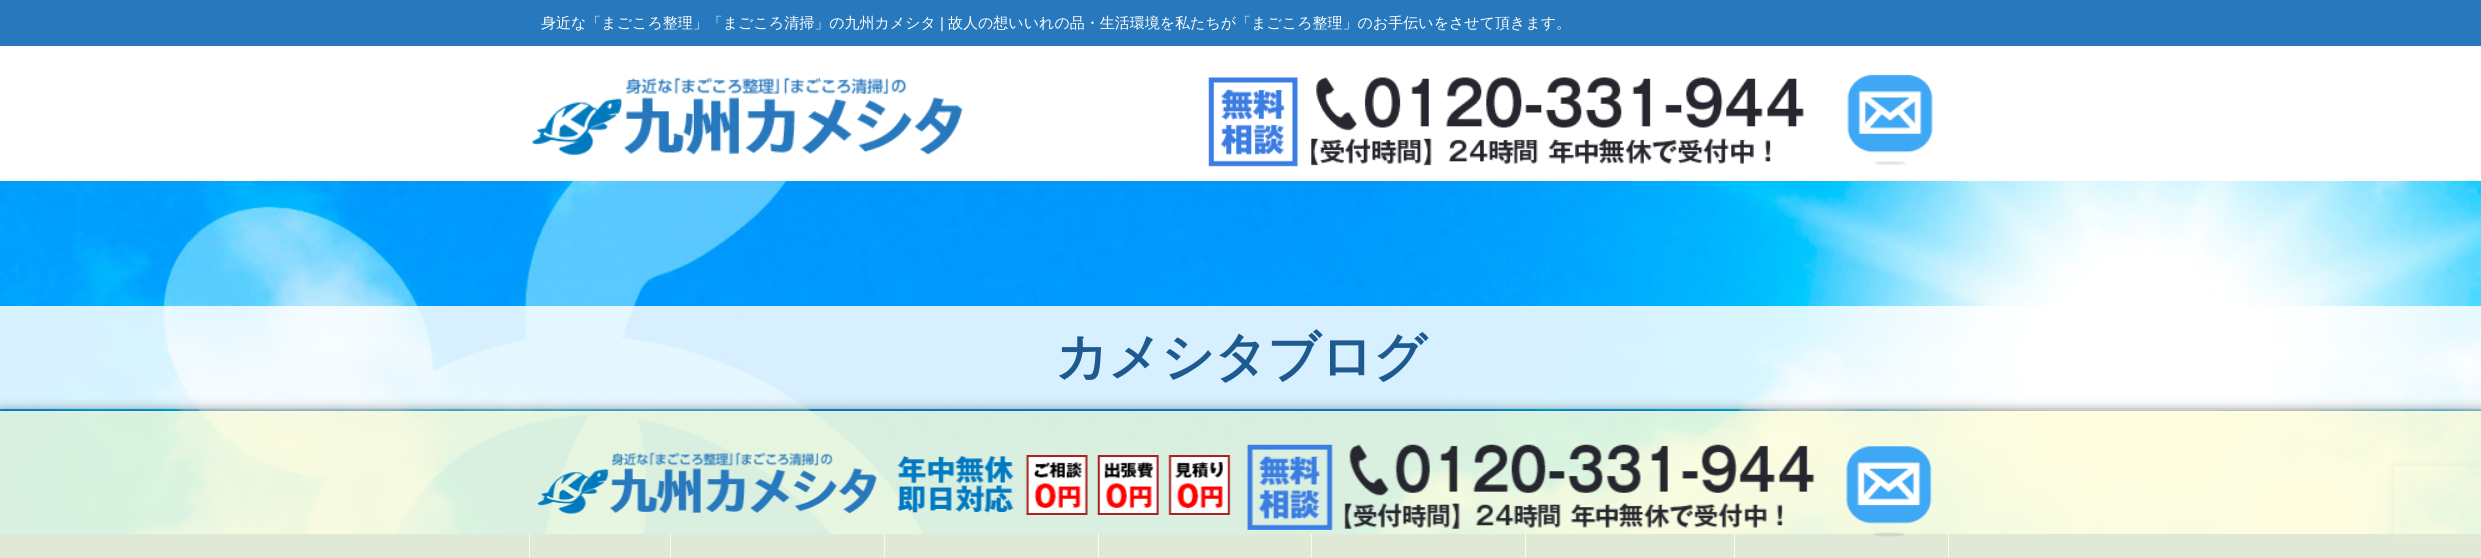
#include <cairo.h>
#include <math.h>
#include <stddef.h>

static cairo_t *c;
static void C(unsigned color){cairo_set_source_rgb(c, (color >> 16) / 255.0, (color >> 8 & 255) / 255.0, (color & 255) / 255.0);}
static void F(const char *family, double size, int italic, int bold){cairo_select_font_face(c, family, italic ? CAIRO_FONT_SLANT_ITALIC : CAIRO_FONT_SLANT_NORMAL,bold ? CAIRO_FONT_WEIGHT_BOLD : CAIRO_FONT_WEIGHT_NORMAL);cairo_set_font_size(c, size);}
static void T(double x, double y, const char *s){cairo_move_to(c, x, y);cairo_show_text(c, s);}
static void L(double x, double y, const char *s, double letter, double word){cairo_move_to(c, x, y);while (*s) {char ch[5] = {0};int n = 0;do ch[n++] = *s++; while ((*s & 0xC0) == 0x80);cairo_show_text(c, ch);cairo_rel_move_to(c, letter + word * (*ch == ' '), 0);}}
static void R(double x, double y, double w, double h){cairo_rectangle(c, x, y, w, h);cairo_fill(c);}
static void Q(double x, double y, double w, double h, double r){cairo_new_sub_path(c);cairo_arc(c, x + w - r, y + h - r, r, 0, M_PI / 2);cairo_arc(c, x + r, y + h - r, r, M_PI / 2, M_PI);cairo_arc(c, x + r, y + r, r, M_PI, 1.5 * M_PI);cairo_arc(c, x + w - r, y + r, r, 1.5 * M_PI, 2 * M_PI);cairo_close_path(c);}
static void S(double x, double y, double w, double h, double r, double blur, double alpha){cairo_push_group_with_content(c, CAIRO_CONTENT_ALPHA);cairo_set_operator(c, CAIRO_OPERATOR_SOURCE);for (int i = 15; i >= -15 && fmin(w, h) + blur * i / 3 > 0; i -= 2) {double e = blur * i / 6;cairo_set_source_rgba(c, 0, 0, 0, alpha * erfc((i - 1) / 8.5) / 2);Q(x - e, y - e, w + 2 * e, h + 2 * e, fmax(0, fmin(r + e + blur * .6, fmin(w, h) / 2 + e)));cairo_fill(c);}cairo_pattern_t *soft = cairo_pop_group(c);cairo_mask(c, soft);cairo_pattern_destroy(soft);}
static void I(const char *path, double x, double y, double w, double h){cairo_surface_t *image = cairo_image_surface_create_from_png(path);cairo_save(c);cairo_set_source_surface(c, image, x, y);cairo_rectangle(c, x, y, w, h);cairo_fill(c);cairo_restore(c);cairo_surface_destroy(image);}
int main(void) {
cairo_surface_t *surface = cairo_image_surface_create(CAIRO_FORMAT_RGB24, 2481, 558);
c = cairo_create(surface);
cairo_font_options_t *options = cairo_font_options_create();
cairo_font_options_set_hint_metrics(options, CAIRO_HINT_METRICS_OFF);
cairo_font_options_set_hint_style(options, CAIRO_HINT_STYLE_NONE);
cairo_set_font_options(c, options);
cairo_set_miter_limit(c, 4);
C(0xffffff);
cairo_paint(c);
C(0x2778bd);
R(0,0,2481,46);
F("WenQuanYi Zen Hei Medium",15,0,0);
C(0xffffff);
T(541,28,"身近な「まごころ整理」「まごころ清掃」の九州カメシタ");
F("Liberation Sans",15,0,0);
T(940,28,"|");
F("WenQuanYi Zen Hei Medium",15,0,0);
T(948,28,"故人の想いいれの品・生活環境を私たちが「まごころ整理」のお手伝いをさせて頂きます。");
I("1.png",532,77,431,78);
I("2.png",1208,77,596,90);
I("3.png",1847,74,86,91);
I("4.png",0,181,2481,353);
cairo_set_source_rgba(c,1,1,1,0.84);
R(0,306,2481,103);
F("WenQuanYi Zen Hei",52.75,0,1);
C(0x1c5a8f);
L(1055,375,"カメシタブログ",-1,0);
C(0x2778bd);
R(0,534,2481,24);
C(0xefefef);
R(670,534,1,24);
R(529,534,1,24);
R(884,534,1,24);
C(0xffffff);
R(1098,534,1,24);
R(1311,534,1,24);
R(1525,534,1,24);
R(1734,534,1,24);
R(1948,534,1,24);
cairo_save(c);
cairo_set_fill_rule(c,CAIRO_FILL_RULE_EVEN_ODD);
cairo_new_path(c);
cairo_move_to(c,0,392);
cairo_line_to(c,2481,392);
cairo_line_to(c,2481,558);
cairo_line_to(c,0,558);
cairo_close_path(c);
cairo_move_to(c,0,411);
cairo_line_to(c,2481,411);
cairo_line_to(c,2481,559);
cairo_line_to(c,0,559);
cairo_close_path(c);
cairo_clip(c);
C(0x000000);
S(0,411,2481,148,0,6,.5);
cairo_restore(c);
cairo_save(c);
cairo_set_fill_rule(c,CAIRO_FILL_RULE_EVEN_ODD);
cairo_new_path(c);
cairo_move_to(c,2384,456);
cairo_line_to(c,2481,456);
cairo_line_to(c,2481,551);
cairo_line_to(c,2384,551);
cairo_close_path(c);
cairo_move_to(c,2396.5,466);
cairo_line_to(c,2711.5,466);
cairo_curve_to(c,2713,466,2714,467,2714,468.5);
cairo_line_to(c,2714,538.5);
cairo_curve_to(c,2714,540,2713,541,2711.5,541);
cairo_line_to(c,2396.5,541);
cairo_curve_to(c,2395,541,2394,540,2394,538.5);
cairo_line_to(c,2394,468.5);
cairo_curve_to(c,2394,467,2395,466,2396.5,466);
cairo_close_path(c);
cairo_clip(c);
C(0x808080);
S(2394,466,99,75,2.5,3,1);
cairo_restore(c);
cairo_set_source_rgba(c,1,0.992,0.855,0.85);
R(0,411,2481,147);
I("5.png",537,452,340,62);
I("6.png",897,455,334,60);
I("7.png",1246,444,569,86);
I("8.png",1846,446,86,91);
cairo_surface_write_to_png(surface, "o.png");
cairo_font_options_destroy(options);
cairo_destroy(c);
cairo_surface_destroy(surface);
return 0;
}
